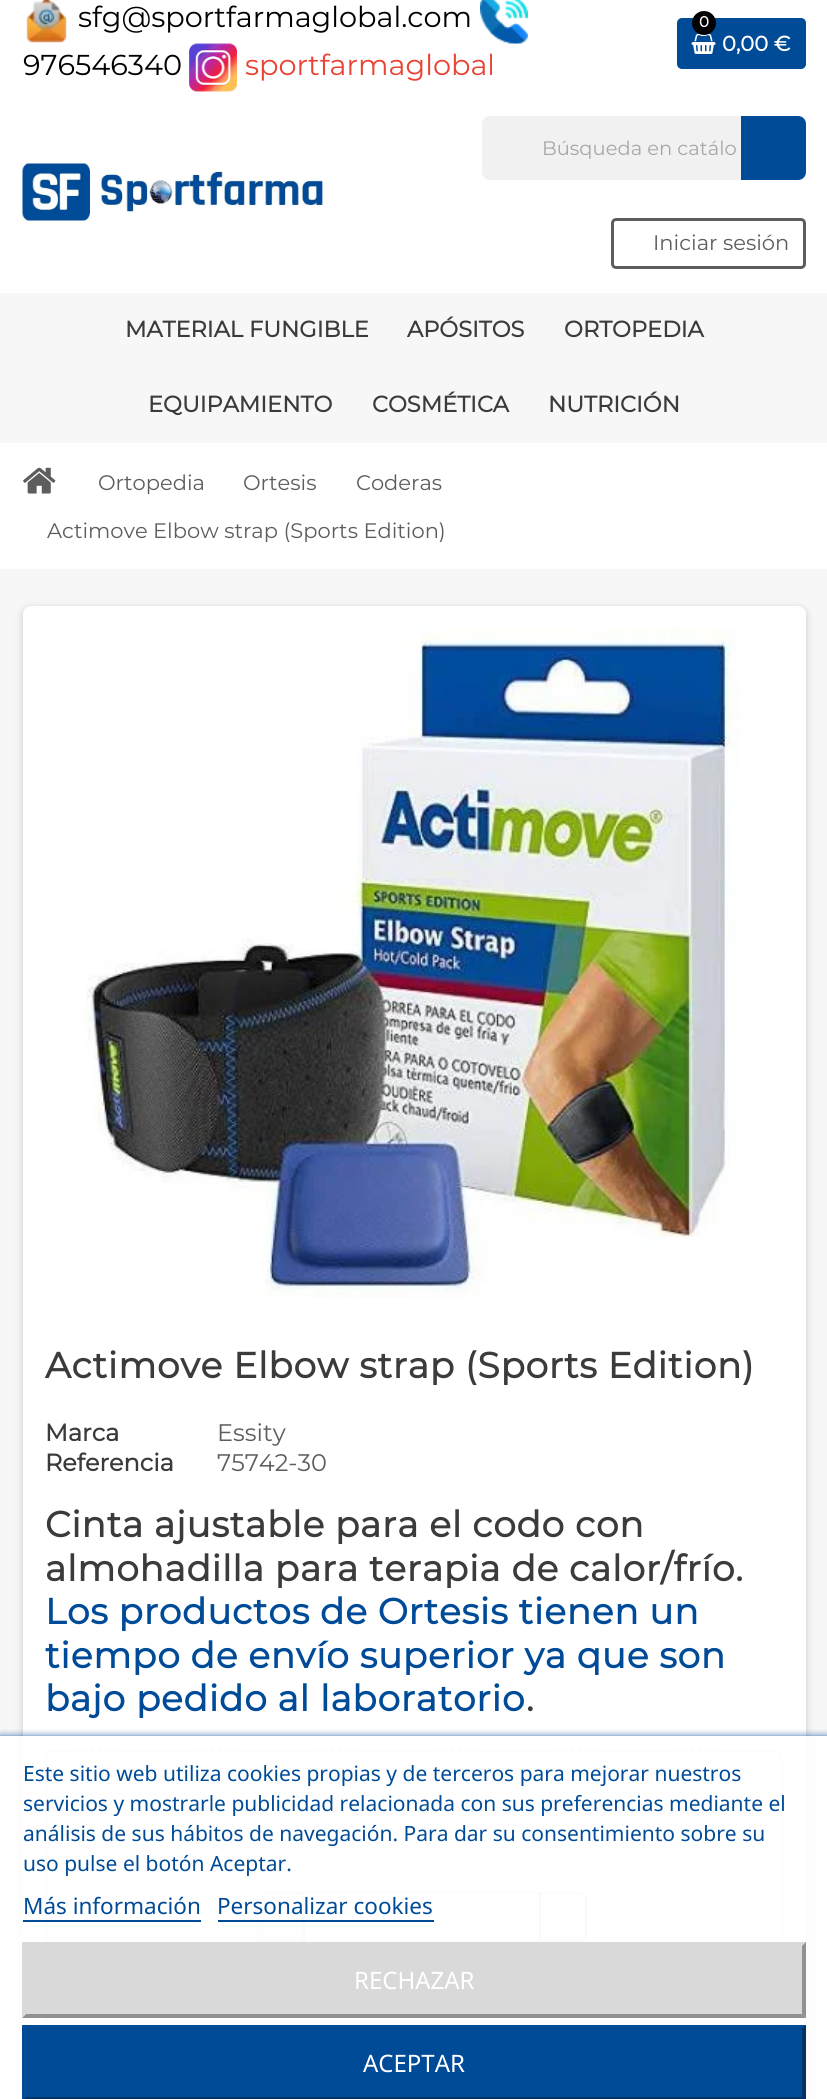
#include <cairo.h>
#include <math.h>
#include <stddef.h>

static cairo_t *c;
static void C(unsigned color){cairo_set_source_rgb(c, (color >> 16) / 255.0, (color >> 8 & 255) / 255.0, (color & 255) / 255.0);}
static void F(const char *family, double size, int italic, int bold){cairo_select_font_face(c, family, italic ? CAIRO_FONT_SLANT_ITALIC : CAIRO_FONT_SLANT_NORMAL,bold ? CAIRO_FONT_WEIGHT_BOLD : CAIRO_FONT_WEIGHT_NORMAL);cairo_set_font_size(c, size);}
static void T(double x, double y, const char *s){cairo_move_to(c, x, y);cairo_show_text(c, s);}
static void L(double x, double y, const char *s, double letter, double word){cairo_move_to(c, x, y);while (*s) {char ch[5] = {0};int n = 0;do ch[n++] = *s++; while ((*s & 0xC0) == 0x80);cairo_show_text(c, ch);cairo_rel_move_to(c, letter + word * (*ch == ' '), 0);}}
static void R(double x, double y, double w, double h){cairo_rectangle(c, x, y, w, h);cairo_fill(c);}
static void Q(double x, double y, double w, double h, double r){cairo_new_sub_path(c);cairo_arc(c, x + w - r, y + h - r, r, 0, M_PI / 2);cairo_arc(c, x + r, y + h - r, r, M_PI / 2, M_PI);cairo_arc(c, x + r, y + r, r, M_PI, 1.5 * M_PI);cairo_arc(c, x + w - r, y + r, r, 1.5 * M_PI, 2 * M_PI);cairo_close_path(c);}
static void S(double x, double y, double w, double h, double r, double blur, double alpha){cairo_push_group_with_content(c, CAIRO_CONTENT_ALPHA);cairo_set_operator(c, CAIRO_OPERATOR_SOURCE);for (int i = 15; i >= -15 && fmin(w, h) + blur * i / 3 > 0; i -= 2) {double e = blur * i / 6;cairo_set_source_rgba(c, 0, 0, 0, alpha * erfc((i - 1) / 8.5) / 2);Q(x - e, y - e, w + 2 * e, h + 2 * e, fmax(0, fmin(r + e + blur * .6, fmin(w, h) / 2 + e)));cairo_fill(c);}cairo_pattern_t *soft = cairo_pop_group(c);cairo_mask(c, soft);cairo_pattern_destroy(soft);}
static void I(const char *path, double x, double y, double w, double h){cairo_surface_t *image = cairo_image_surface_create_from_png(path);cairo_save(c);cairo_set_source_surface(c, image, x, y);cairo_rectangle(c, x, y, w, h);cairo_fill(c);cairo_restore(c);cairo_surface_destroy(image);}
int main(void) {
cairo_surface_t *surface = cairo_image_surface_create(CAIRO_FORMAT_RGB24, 827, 2099);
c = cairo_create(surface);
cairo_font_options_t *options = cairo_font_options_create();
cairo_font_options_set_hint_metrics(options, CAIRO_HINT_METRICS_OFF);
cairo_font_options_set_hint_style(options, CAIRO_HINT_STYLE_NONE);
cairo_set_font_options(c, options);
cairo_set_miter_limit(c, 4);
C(0xffffff);
cairo_paint(c);
I("1.png",26,0,41,43);
F("Montserrat Thin",28.75,0,0);
C(0x000000);
T(78,27,"sfg@sportfarmaglobal.com");
I("2.png",480,0,48,44);
T(23,75,"976546340");
I("3.png",189,43,48,49);
C(0xea4335);
T(245,75,"sportfarmaglobal");
C(0x004b98);
Q(677,18,129,51,5);
cairo_fill(c);
I("4.png",691,33,25,21);
C(0x000000);
cairo_arc(c,704,23,12,0,2 * M_PI);
cairo_fill(c);
F("Montserrat",15,0,1);
C(0xffffff);
T(699,27,"0");
F("Montserrat",21,0,1);
T(722,51,"0,00 €");
I("5.png",22,163,301,58);
C(0xf1f1f1);
Q(482,116,322,64,8);
cairo_fill(c);
F("Montserrat Thin",19.5,0,0);
C(0xa7a7a7);
T(542,155,"Búsqueda en catálo");
C(0x004b98);
cairo_new_path(c);
cairo_move_to(c,741,116);
cairo_line_to(c,798,116);
cairo_curve_to(c,802.5,116,806,119.5,806,124);
cairo_line_to(c,806,172);
cairo_curve_to(c,806,176.5,802.5,180,798,180);
cairo_line_to(c,741,180);
cairo_close_path(c);
cairo_fill(c);
Q(612.5,219.5,192,48,3.5);
C(0x5d5d5d);
cairo_set_line_width(c,3);
cairo_stroke(c);
F("Montserrat Thin",21,0,0);
T(653,250,"Iniciar sesión");
C(0xf7f7f7);
R(0,293,827,150);
F("Montserrat",22.5,0,1);
C(0x3b3b3b);
T(125,337,"MATERIAL FUNGIBLE");
T(407,337,"APÓSITOS");
T(564,337,"ORTOPEDIA");
T(148,412,"EQUIPAMIENTO");
T(372,412,"COSMÉTICA");
T(548,412,"NUTRICIÓN");
C(0xf7f7f7);
R(0,569,827,1530);
I("6.png",23,467,33,27);
F("Montserrat Thin",21,0,0);
C(0x5d5d5d);
T(98,490,"Ortopedia");
T(243,490,"Ortesis");
T(356,490,"Coderas");
T(47,538,"Actimove Elbow strap (Sports Edition)");
C(0x000000);
S(23,608,783,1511,8,4,.2);
C(0xffffff);
Q(23,606,783,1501,8);
cairo_fill(c);
I("7.png",83,628,659,670);
F("Montserrat",36,0,1);
C(0x3b3b3b);
L(45,1378,"Actimove Elbow strap (Sports Edition)",.7,0);
F("Montserrat",24,0,1);
T(45,1441,"Marca");
F("Montserrat Thin",24,0,0);
C(0x5d5d5d);
T(217,1441,"Essity");
F("Montserrat",24,0,1);
C(0x3b3b3b);
T(45,1471,"Referencia");
F("Montserrat Thin",24,0,0);
C(0x5d5d5d);
T(217,1471,"75742-30");
F("Montserrat",36,0,1);
C(0x3b3b3b);
L(45,1537,"Cinta ajustable para el codo con",.7,0);
L(45,1581,"almohadilla para terapia de calor/frío.",.7,0);
C(0x004b98);
L(45,1624,"Los productos de Ortesis tienen un",.7,0);
L(45,1668,"tiempo de envío superior ya que son",.7,0);
L(45,1711,"bajo pedido al laboratorio",.7,0);
C(0x3b3b3b);
L(526,1711,".",.7,0);
cairo_new_path(c);
cairo_move_to(c,52.5,1751);
cairo_line_to(c,775.5,1751);
cairo_curve_to(c,779,1751,782,1754.5,782,1758);
cairo_line_to(c,782,2067);
cairo_curve_to(c,782,2070.5,779,2074,775.5,2074);
cairo_line_to(c,52.5,2074);
cairo_curve_to(c,49,2074,46,2070.5,46,2067);
cairo_line_to(c,46,1758);
cairo_curve_to(c,46,1754.5,49,1751,52.5,1751);
cairo_close_path(c);
C(0xc7c7c7);
cairo_set_line_width(c,1.5);
cairo_set_dash(c,(double[]){4.5,3},2,0);
cairo_stroke(c);
Q(258,1893,328,49,7);
cairo_set_line_width(c,2);
cairo_set_dash(c,NULL,0,0);
cairo_stroke(c);
C(0xf7f7f7);
cairo_new_path(c);
cairo_move_to(c,264,1893);
cairo_line_to(c,303,1893);
cairo_line_to(c,303,1941);
cairo_line_to(c,264,1941);
cairo_curve_to(c,260.5,1941,258,1938.5,258,1935);
cairo_line_to(c,258,1899);
cairo_curve_to(c,258,1895.5,260.5,1893,264,1893);
cairo_close_path(c);
cairo_fill(c);
C(0xffffff);
R(305,1893,234,1);
C(0xf7f7f7);
cairo_new_path(c);
cairo_move_to(c,540,1893);
cairo_line_to(c,579,1893);
cairo_curve_to(c,582.5,1893,585,1895.5,585,1899);
cairo_line_to(c,585,1935);
cairo_curve_to(c,585,1938.5,582.5,1941,579,1941);
cairo_line_to(c,540,1941);
cairo_close_path(c);
cairo_fill(c);
C(0xc7c7c7);
R(539,1893,2,48);
R(303,1893,2,48);
cairo_save(c);
cairo_rectangle(c,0,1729,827,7);
cairo_clip(c);
C(0x004b98);
S(0,1737,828,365,0,4,1);
cairo_restore(c);
cairo_set_source_rgba(c,1,1,1,0.9);
R(0,1736,827,363);
F("Noto Sans",21,0,0);
C(0x004b98);
T(23,1781,"Este sitio web utiliza cookies propias y de terceros para mejorar nuestros");
T(23,1811,"servicios y mostrarle publicidad relacionada con sus preferencias mediante el");
T(23,1841,"análisis de sus hábitos de navegación. Para dar su consentimiento sobre su");
T(23,1871,"uso pulse el botón Aceptar.");
F("Noto Sans",22.5,0,0);
T(23,1914,"Más información");
R(23,1920,178,2);
T(217,1914,"Personalizar cookies");
R(218,1920,216,2);
C(0xd9d9d9);
R(23,1943,783,75);
cairo_new_path(c);
cairo_move_to(c,22,1942);
cairo_line_to(c,806,1942);
cairo_line_to(c,802,1946);
cairo_line_to(c,26,1946);
cairo_close_path(c);
cairo_fill(c);
C(0x919191);
cairo_new_path(c);
cairo_move_to(c,806,1942);
cairo_line_to(c,806,2018);
cairo_line_to(c,802,2014);
cairo_line_to(c,802,1946);
cairo_close_path(c);
cairo_fill(c);
cairo_new_path(c);
cairo_move_to(c,806,2018);
cairo_line_to(c,22,2018);
cairo_line_to(c,26,2014);
cairo_line_to(c,802,2014);
cairo_close_path(c);
cairo_fill(c);
C(0xd9d9d9);
cairo_new_path(c);
cairo_move_to(c,22,2018);
cairo_line_to(c,22,1942);
cairo_line_to(c,26,1946);
cairo_line_to(c,26,2014);
cairo_close_path(c);
cairo_fill(c);
F("Noto Sans",24,0,0);
C(0xffffff);
T(354,1989,"RECHAZAR");
C(0x004b98);
R(23,2025,783,74);
cairo_new_path(c);
cairo_move_to(c,22,2025);
cairo_line_to(c,806,2025);
cairo_line_to(c,802,2028);
cairo_line_to(c,26,2028);
cairo_close_path(c);
cairo_fill(c);
C(0x003265);
cairo_new_path(c);
cairo_move_to(c,806,2025);
cairo_line_to(c,806,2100);
cairo_line_to(c,802,2097);
cairo_line_to(c,802,2028);
cairo_close_path(c);
cairo_fill(c);
cairo_new_path(c);
cairo_move_to(c,806,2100);
cairo_line_to(c,22,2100);
cairo_line_to(c,26,2097);
cairo_line_to(c,802,2097);
cairo_close_path(c);
cairo_fill(c);
C(0x004b98);
cairo_new_path(c);
cairo_move_to(c,22,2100);
cairo_line_to(c,22,2025);
cairo_line_to(c,26,2028);
cairo_line_to(c,26,2097);
cairo_close_path(c);
cairo_fill(c);
C(0xffffff);
T(363,2072,"ACEPTAR");
cairo_surface_write_to_png(surface, "o.png");
cairo_font_options_destroy(options);
cairo_destroy(c);
cairo_surface_destroy(surface);
return 0;
}
